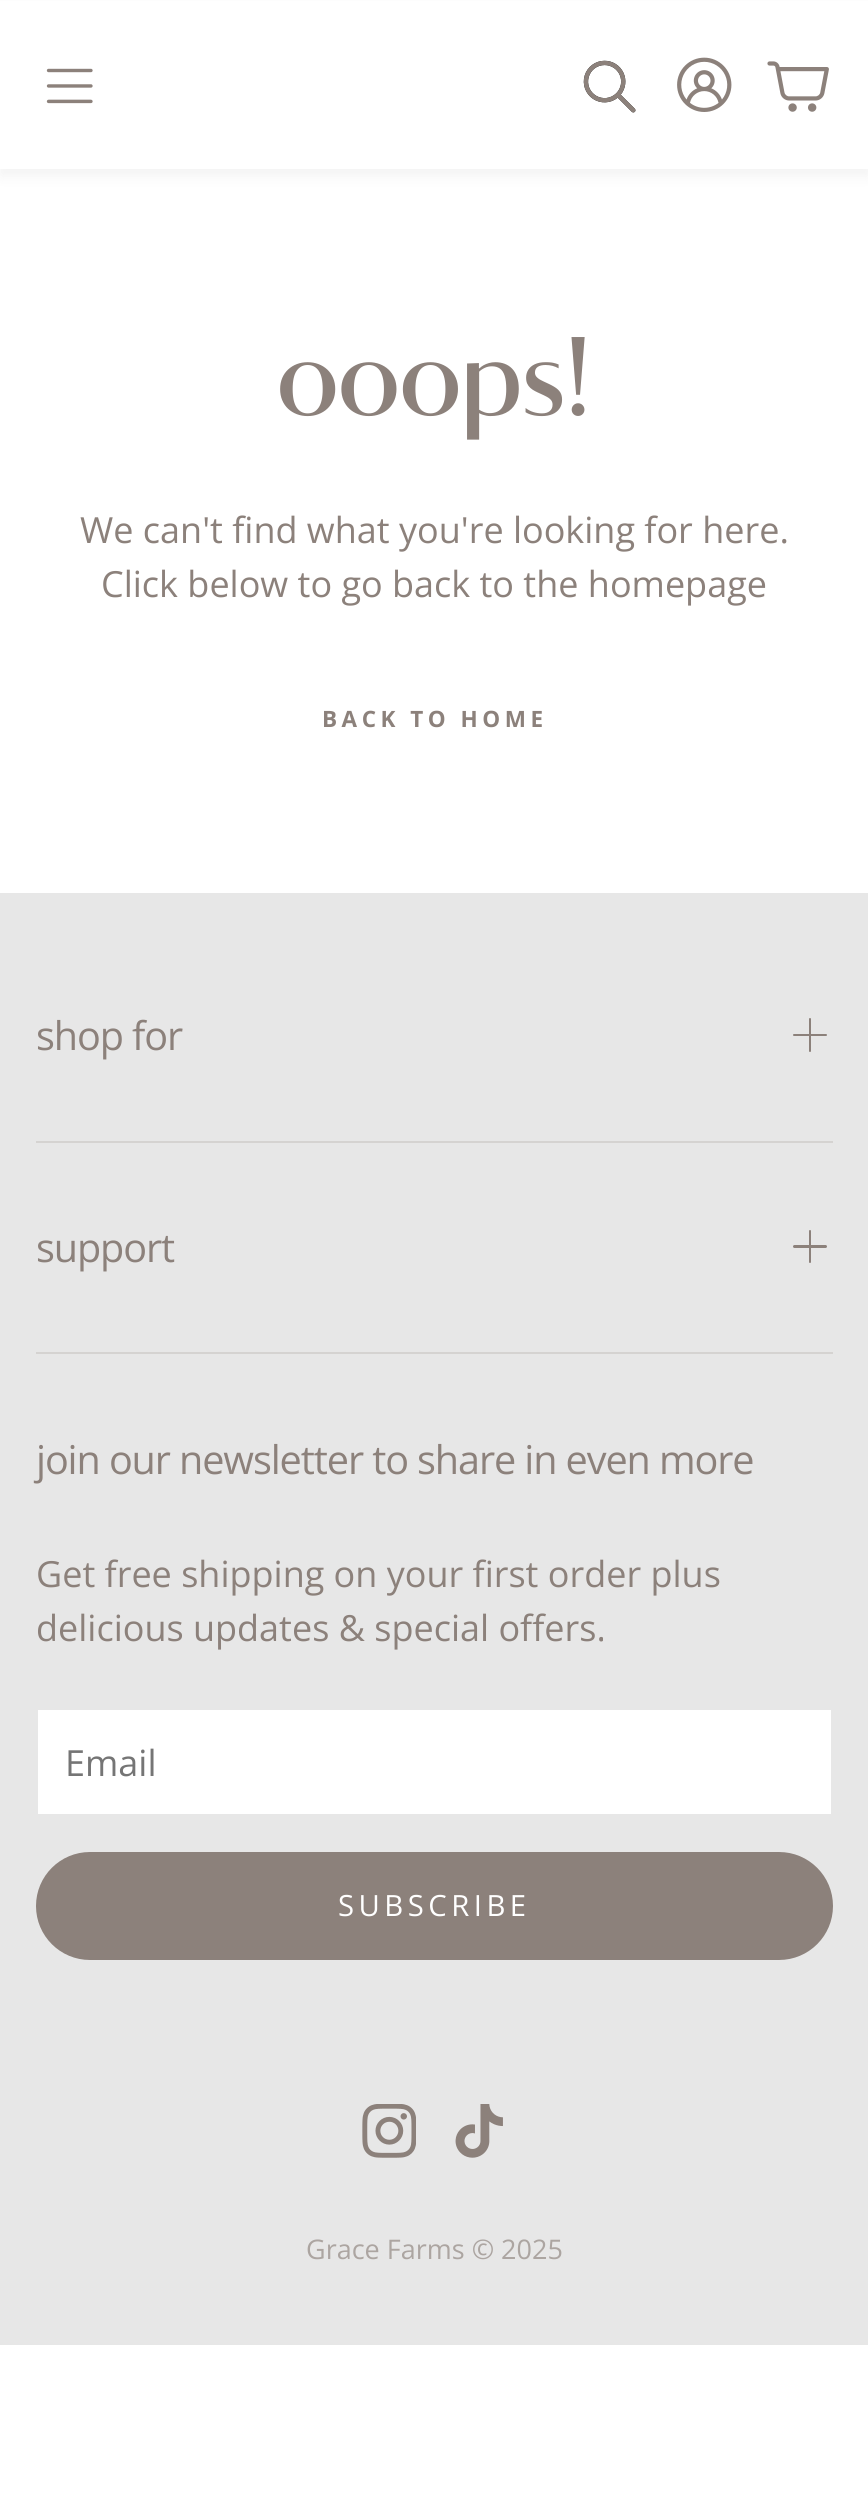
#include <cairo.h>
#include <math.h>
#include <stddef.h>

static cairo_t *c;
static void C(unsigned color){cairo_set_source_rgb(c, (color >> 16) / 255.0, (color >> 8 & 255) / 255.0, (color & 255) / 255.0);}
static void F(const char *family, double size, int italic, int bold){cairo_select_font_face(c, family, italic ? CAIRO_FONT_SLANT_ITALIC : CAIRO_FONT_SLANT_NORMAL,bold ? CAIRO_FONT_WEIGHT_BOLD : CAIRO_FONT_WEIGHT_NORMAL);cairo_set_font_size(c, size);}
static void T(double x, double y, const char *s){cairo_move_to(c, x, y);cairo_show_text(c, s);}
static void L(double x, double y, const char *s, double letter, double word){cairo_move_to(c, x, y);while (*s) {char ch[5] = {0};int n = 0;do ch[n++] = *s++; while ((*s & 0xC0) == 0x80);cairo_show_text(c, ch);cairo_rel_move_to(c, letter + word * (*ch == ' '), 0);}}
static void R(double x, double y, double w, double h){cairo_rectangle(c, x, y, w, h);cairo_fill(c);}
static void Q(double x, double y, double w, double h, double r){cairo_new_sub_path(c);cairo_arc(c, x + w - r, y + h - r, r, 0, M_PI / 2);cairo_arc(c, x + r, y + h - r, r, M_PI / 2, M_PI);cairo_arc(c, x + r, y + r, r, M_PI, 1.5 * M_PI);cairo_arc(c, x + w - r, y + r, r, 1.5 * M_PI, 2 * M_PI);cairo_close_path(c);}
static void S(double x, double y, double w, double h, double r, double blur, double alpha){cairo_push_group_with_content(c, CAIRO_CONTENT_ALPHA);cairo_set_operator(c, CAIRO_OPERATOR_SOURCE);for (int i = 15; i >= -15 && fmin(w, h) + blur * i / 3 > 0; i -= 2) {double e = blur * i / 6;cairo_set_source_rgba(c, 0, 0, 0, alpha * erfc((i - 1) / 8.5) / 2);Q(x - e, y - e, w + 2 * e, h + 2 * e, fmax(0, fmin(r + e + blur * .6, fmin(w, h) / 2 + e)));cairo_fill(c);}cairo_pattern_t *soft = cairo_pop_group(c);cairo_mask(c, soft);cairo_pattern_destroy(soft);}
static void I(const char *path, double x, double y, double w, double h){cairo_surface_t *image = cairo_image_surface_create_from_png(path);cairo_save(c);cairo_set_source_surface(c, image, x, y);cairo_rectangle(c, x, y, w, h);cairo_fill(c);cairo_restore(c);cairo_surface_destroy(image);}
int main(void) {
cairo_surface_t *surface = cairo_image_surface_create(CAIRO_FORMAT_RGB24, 868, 2503);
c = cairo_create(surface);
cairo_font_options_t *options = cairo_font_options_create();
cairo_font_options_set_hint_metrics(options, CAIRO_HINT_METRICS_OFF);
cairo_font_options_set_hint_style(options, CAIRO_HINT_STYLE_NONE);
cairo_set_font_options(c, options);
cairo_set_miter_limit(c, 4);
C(0xffffff);
cairo_paint(c);
C(0x000000);
S(0,7,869,169,0,7,.05);
C(0xffffff);
R(0,1,868,168);
I("1.png",46,68,47,36);
I("2.png",583,60,53,53);
I("3.png",583,60,53,53);
I("4.png",677,57,55,55);
I("5.png",767,61,62,51);
F("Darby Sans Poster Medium",108,0,0);
C(0x8c817b);
T(277,415,"ooops!");
F("Open Sans",36,0,0);
T(80,543,"We can't find what you're looking for here.");
T(101,597,"Click below to go back to the homepage");
F("Open Sans",22.5,0,1);
L(322,727,"BACK TO HOME",4.5,0);
C(0xe7e7e7);
R(0,893,868,1452);
F("Open Sans",39.6,0,0);
C(0x8c817b);
L(36,1050,"shop for",-1.1,0);
Q(793,1034,34,2,1);
cairo_fill(c);
Q(809,1018,2,34,1);
cairo_fill(c);
C(0xd5d3d1);
R(36,1141,797,2);
C(0x8c817b);
L(36,1262,"support",-1.1,0);
Q(793,1245,34,3,1.5);
cairo_fill(c);
Q(809,1230,2,33,1);
cairo_fill(c);
C(0xd5d3d1);
R(36,1352,797,2);
C(0x8c817b);
L(36,1474,"join our newsletter to share in even more",-1.1,0);
F("Open Sans",36,0,0);
T(36,1587,"Get free shipping on your first order plus");
T(36,1641,"delicious updates & special offers.");
C(0xffffff);
R(38,1710,793,104);
C(0x757575);
T(65,1776,"Email");
C(0x8c817b);
Q(36,1852,797,108,54);
cairo_fill(c);
F("Open Sans",29.25,0,0);
C(0xffffff);
L(338,1916,"SUBSCRIBE",4.5,0);
I("6.png",362,2104,54,54);
I("7.png",455,2104,48,54);
F("Open Sans",27,0,0);
C(0xaca5a1);
T(306,2259,"Grace Farms © 2025");
cairo_surface_write_to_png(surface, "o.png");
cairo_font_options_destroy(options);
cairo_destroy(c);
cairo_surface_destroy(surface);
return 0;
}
